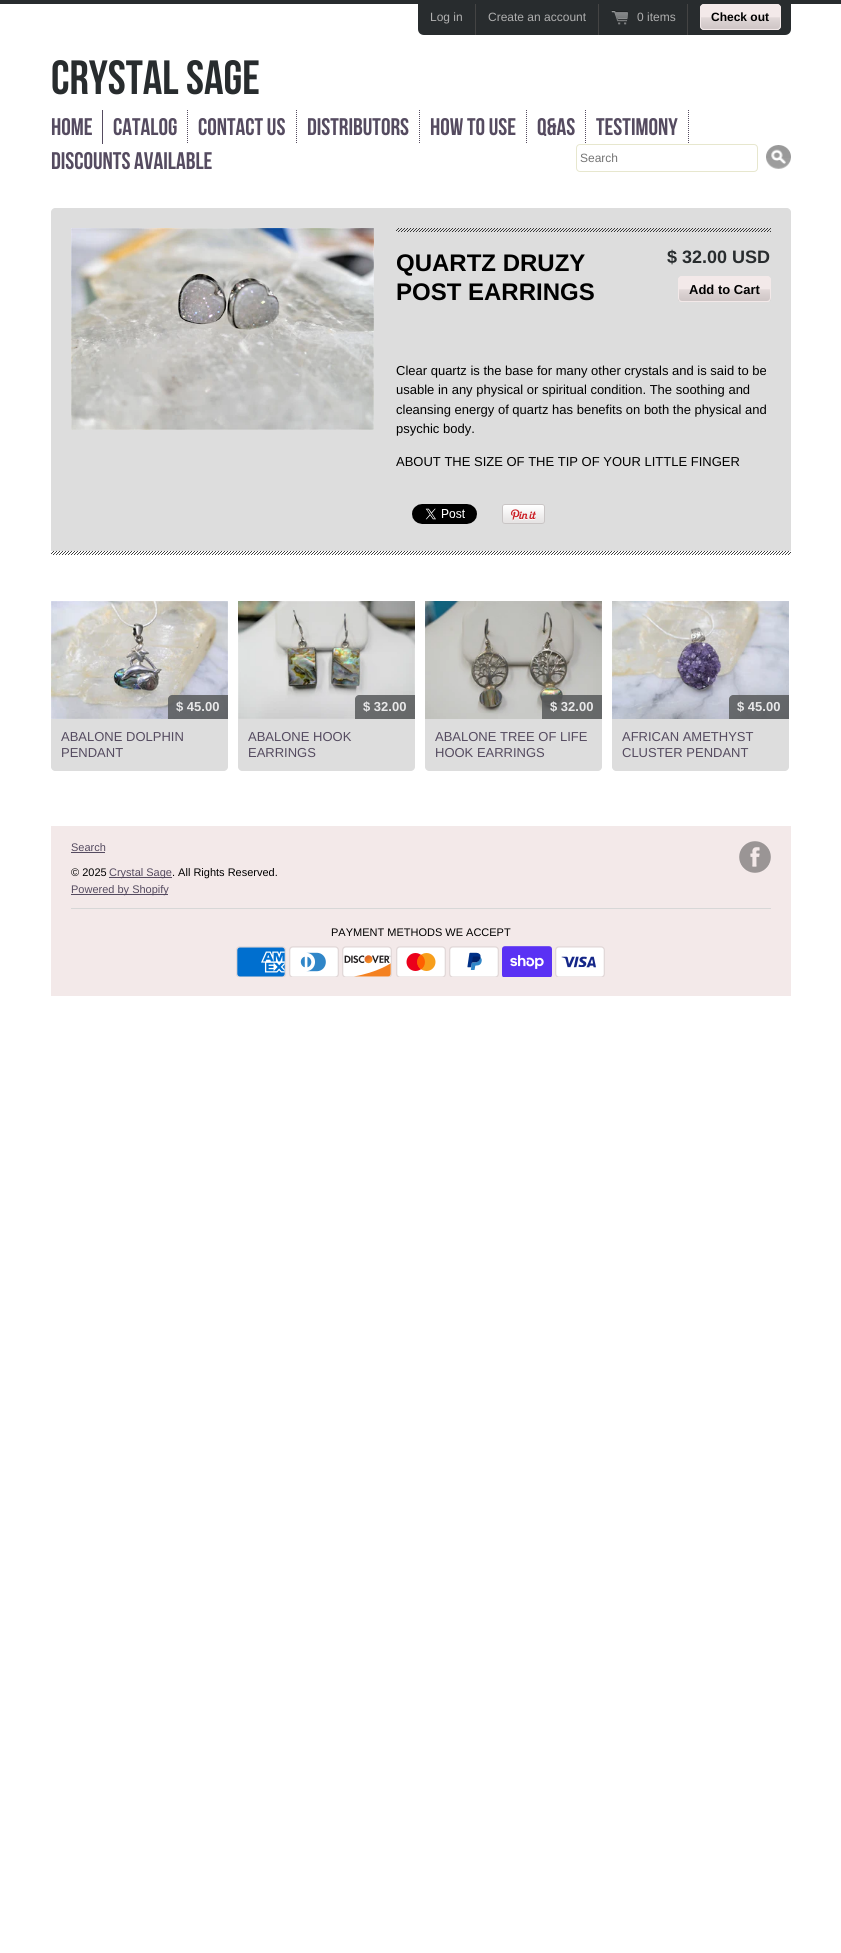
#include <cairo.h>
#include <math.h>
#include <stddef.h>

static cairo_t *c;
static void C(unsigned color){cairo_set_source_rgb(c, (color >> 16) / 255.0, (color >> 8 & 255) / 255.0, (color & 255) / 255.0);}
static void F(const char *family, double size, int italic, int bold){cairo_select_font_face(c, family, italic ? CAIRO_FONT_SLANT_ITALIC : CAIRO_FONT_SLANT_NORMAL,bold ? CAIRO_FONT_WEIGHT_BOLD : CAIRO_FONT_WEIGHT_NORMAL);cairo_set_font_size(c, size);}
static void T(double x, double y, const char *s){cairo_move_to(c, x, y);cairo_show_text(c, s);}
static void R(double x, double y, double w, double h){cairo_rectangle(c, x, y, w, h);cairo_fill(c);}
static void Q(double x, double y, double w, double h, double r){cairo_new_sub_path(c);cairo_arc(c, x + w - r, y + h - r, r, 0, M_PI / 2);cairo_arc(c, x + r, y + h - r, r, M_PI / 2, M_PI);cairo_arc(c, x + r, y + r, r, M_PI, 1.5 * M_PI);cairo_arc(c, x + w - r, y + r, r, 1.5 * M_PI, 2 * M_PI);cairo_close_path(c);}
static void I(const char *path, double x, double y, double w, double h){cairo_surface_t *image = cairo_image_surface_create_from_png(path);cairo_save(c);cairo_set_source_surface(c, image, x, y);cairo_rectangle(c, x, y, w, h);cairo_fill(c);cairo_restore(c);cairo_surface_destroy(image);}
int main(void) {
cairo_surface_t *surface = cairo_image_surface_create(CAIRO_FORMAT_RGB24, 841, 1953);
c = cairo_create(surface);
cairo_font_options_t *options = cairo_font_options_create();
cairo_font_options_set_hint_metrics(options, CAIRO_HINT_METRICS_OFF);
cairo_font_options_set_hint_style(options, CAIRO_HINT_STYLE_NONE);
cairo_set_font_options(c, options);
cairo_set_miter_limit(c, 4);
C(0xffffff);
cairo_paint(c);
C(0x282c2e);
R(0,0,841,4);
cairo_new_path(c);
cairo_move_to(c,418,4);
cairo_line_to(c,791,4);
cairo_line_to(c,791,29);
cairo_curve_to(c,791,32.5,788.5,35,785,35);
cairo_line_to(c,424,35);
cairo_curve_to(c,420.5,35,418,32.5,418,29);
cairo_close_path(c);
cairo_fill(c);
C(0x444444);
R(475,4,1,31);
F("Liberation Sans",12,0,0);
C(0xafafaf);
T(430,21,"Log in");
C(0x444444);
R(598,4,1,31);
C(0xafafaf);
T(488,21,"Create an account");
C(0x444444);
R(687,4,1,31);
I("1.png",611,10,17,15);
C(0xafafaf);
T(637,21,"0 items");
C(0xf3e9e9);
Q(700,4,81,26,4);
cairo_fill(c);
I("2.png",700,17,81,12);
Q(700.5,4.5,80,25,3.5);
cairo_set_line_width(c,1);
cairo_stroke(c);
F("Liberation Sans",12,0,1);
C(0x000000);
T(711,21,"Check out");
F("Bebas Neue",48,0,0);
C(0x282c2e);
T(51,94,"Crystal Sage");
C(0x554b60);
R(102,110,1,34);
F("Bebas Neue",24,0,0);
T(51,135,"Home");
cairo_new_path(c);
cairo_move_to(c,187.5,110);
cairo_line_to(c,187.5,144);
cairo_set_dash(c,(double[]){1,1},2,0);
cairo_stroke(c);
T(113,135,"Catalog");
cairo_new_path(c);
cairo_move_to(c,296.5,110);
cairo_line_to(c,296.5,144);
cairo_stroke(c);
T(198,135,"Contact Us");
cairo_new_path(c);
cairo_move_to(c,419.5,110);
cairo_line_to(c,419.5,144);
cairo_stroke(c);
T(307,135,"Distributors");
cairo_new_path(c);
cairo_move_to(c,526.5,110);
cairo_line_to(c,526.5,144);
cairo_stroke(c);
T(430,135,"How to Use");
cairo_new_path(c);
cairo_move_to(c,585.5,110);
cairo_line_to(c,585.5,144);
cairo_stroke(c);
T(537,135,"Q&As");
cairo_new_path(c);
cairo_move_to(c,688.5,110);
cairo_line_to(c,688.5,144);
cairo_stroke(c);
T(596,135,"Testimony");
T(51,169,"Discounts Available");
Q(576.5,144.5,181,27,3.5);
C(0xe7e7ce);
cairo_set_dash(c,NULL,0,0);
cairo_stroke(c);
F("Liberation Sans",12,0,0);
C(0x757575);
T(580,162,"Search");
I("3.png",766,145,25,24);
C(0xdddddd);
cairo_new_path(c);
cairo_move_to(c,55,208);
cairo_line_to(c,787,208);
cairo_curve_to(c,789,208,791,210,791,212);
cairo_line_to(c,791,551);
cairo_line_to(c,51,551);
cairo_line_to(c,51,212);
cairo_curve_to(c,51,210,53,208,55,208);
cairo_close_path(c);
cairo_fill(c);
I("4.png",71,228,303,202);
I("5.png",396,228,375,4);
F("Liberation Sans",24,0,1);
C(0x000000);
T(396,271,"QUARTZ DRUZY");
T(396,300,"POST EARRINGS");
F("Liberation Sans",18,0,1);
C(0x282c2e);
T(667,263,"$ 32.00 USD");
C(0xf3e9e9);
Q(678,276,93,26,4);
cairo_fill(c);
I("6.png",678,289,93,12);
Q(678.5,276.5,92,25,3.5);
cairo_stroke(c);
F("Liberation Sans",13,0,1);
C(0x000000);
T(689,294,"Add to Cart");
F("Liberation Sans",13,0,0);
T(396,375,"Clear quartz is the base for many other crystals and is said to be");
T(396,394,"usable in any physical or spiritual condition. The soothing and");
T(396,414,"cleansing energy of quartz has benefits on both the physical and");
T(396,433,"psychic body.");
T(396,466,"ABOUT THE SIZE OF THE TIP OF YOUR LITTLE FINGER");
I("7.png",412,504,65,20);
I("8.png",502,504,43,20);
I("9.png",51,551,740,4);
I("10.png",51,601,177,118);
cairo_set_source_rgba(c,0.341,0.353,0.357,0.85);
cairo_new_path(c);
cairo_move_to(c,172,695);
cairo_line_to(c,228,695);
cairo_line_to(c,228,719);
cairo_line_to(c,168,719);
cairo_line_to(c,168,699);
cairo_curve_to(c,168,697,170,695,172,695);
cairo_close_path(c);
cairo_fill(c);
F("Liberation Sans",13,0,1);
C(0xe8e8e9);
T(176,711,"$ 45.00");
C(0xdddddd);
cairo_new_path(c);
cairo_move_to(c,51,719);
cairo_line_to(c,228,719);
cairo_line_to(c,228,767);
cairo_curve_to(c,228,769,226,771,224,771);
cairo_line_to(c,55,771);
cairo_curve_to(c,53,771,51,769,51,767);
cairo_close_path(c);
cairo_fill(c);
F("Liberation Sans",13,0,0);
C(0x554b60);
T(61,741,"ABALONE DOLPHIN");
T(61,757,"PENDANT");
I("11.png",238,601,177,118);
cairo_set_source_rgba(c,0.341,0.353,0.357,0.85);
cairo_new_path(c);
cairo_move_to(c,359,695);
cairo_line_to(c,415,695);
cairo_line_to(c,415,719);
cairo_line_to(c,355,719);
cairo_line_to(c,355,699);
cairo_curve_to(c,355,697,357,695,359,695);
cairo_close_path(c);
cairo_fill(c);
F("Liberation Sans",13,0,1);
C(0xe8e8e9);
T(363,711,"$ 32.00");
C(0xdddddd);
cairo_new_path(c);
cairo_move_to(c,238,719);
cairo_line_to(c,415,719);
cairo_line_to(c,415,767);
cairo_curve_to(c,415,769,413,771,411,771);
cairo_line_to(c,242,771);
cairo_curve_to(c,240,771,238,769,238,767);
cairo_close_path(c);
cairo_fill(c);
F("Liberation Sans",13,0,0);
C(0x554b60);
T(248,741,"ABALONE HOOK");
T(248,757,"EARRINGS");
I("12.png",425,601,177,118);
cairo_set_source_rgba(c,0.341,0.353,0.357,0.85);
cairo_new_path(c);
cairo_move_to(c,546,695);
cairo_line_to(c,602,695);
cairo_line_to(c,602,719);
cairo_line_to(c,542,719);
cairo_line_to(c,542,699);
cairo_curve_to(c,542,697,544,695,546,695);
cairo_close_path(c);
cairo_fill(c);
F("Liberation Sans",13,0,1);
C(0xe8e8e9);
T(550,711,"$ 32.00");
C(0xdddddd);
cairo_new_path(c);
cairo_move_to(c,425,719);
cairo_line_to(c,602,719);
cairo_line_to(c,602,767);
cairo_curve_to(c,602,769,600,771,598,771);
cairo_line_to(c,429,771);
cairo_curve_to(c,427,771,425,769,425,767);
cairo_close_path(c);
cairo_fill(c);
F("Liberation Sans",13,0,0);
C(0x554b60);
T(435,741,"ABALONE TREE OF LIFE");
T(435,757,"HOOK EARRINGS");
I("13.png",612,601,177,118);
cairo_set_source_rgba(c,0.341,0.353,0.357,0.85);
cairo_new_path(c);
cairo_move_to(c,733,695);
cairo_line_to(c,789,695);
cairo_line_to(c,789,719);
cairo_line_to(c,729,719);
cairo_line_to(c,729,699);
cairo_curve_to(c,729,697,731,695,733,695);
cairo_close_path(c);
cairo_fill(c);
F("Liberation Sans",13,0,1);
C(0xe8e8e9);
T(737,711,"$ 45.00");
C(0xdddddd);
cairo_new_path(c);
cairo_move_to(c,612,719);
cairo_line_to(c,789,719);
cairo_line_to(c,789,767);
cairo_curve_to(c,789,769,787,771,785,771);
cairo_line_to(c,616,771);
cairo_curve_to(c,614,771,612,769,612,767);
cairo_close_path(c);
cairo_fill(c);
F("Liberation Sans",13,0,0);
C(0x554b60);
T(622,741,"AFRICAN AMETHYST");
T(622,757,"CLUSTER PENDANT");
C(0xf3e9e9);
R(51,826,740,170);
F("Liberation Sans",11,0,0);
C(0x554b60);
T(71,851,"Search");
R(71,852,34,1);
C(0x000000);
T(71,876,"© 2025");
C(0x554b60);
R(109,877,63,1);
T(109,876,"Crystal Sage");
C(0x000000);
T(172,876,". All Rights Reserved.");
C(0x554b60);
R(71,894,97,1);
T(71,893,"Powered by Shopify");
I("14.png",739,841,32,32);
C(0xd7d7d7);
R(71,908,700,1);
C(0x000000);
T(331,936,"PAYMENT METHODS WE ACCEPT");
I("15.png",236,946,50,31);
I("16.png",289,946,50,31);
I("17.png",342,946,50,31);
I("18.png",396,946,50,31);
I("19.png",449,946,50,31);
I("20.png",502,946,50,31);
I("21.png",555,946,50,31);
cairo_surface_write_to_png(surface, "o.png");
cairo_font_options_destroy(options);
cairo_destroy(c);
cairo_surface_destroy(surface);
return 0;
}
